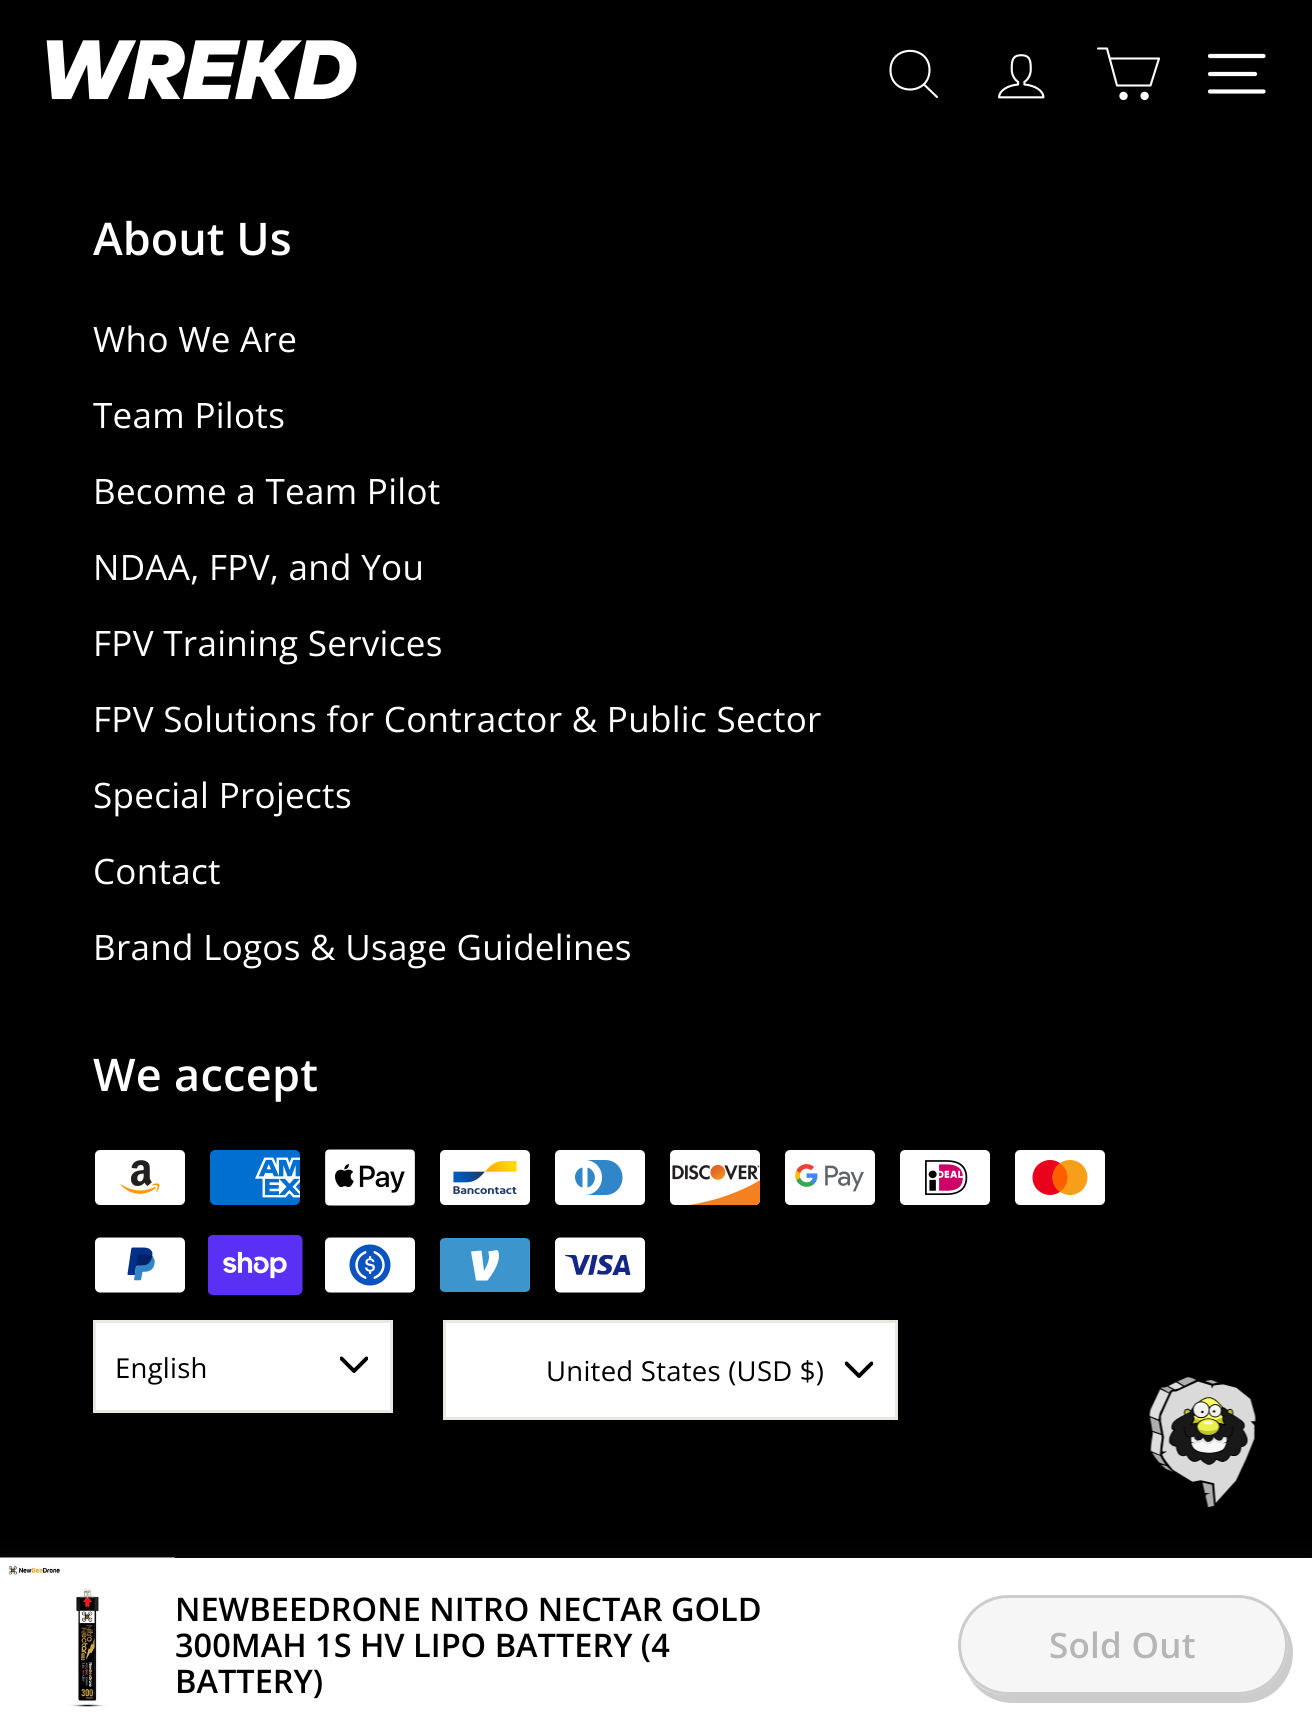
#include <cairo.h>
#include <math.h>
#include <stddef.h>

static cairo_t *c;
static void C(unsigned color){cairo_set_source_rgb(c, (color >> 16) / 255.0, (color >> 8 & 255) / 255.0, (color & 255) / 255.0);}
static void F(const char *family, double size, int italic, int bold){cairo_select_font_face(c, family, italic ? CAIRO_FONT_SLANT_ITALIC : CAIRO_FONT_SLANT_NORMAL,bold ? CAIRO_FONT_WEIGHT_BOLD : CAIRO_FONT_WEIGHT_NORMAL);cairo_set_font_size(c, size);}
static void T(double x, double y, const char *s){cairo_move_to(c, x, y);cairo_show_text(c, s);}
static void L(double x, double y, const char *s, double letter, double word){cairo_move_to(c, x, y);while (*s) {char ch[5] = {0};int n = 0;do ch[n++] = *s++; while ((*s & 0xC0) == 0x80);cairo_show_text(c, ch);cairo_rel_move_to(c, letter + word * (*ch == ' '), 0);}}
static void R(double x, double y, double w, double h){cairo_rectangle(c, x, y, w, h);cairo_fill(c);}
static void Q(double x, double y, double w, double h, double r){cairo_new_sub_path(c);cairo_arc(c, x + w - r, y + h - r, r, 0, M_PI / 2);cairo_arc(c, x + r, y + h - r, r, M_PI / 2, M_PI);cairo_arc(c, x + r, y + r, r, M_PI, 1.5 * M_PI);cairo_arc(c, x + w - r, y + r, r, 1.5 * M_PI, 2 * M_PI);cairo_close_path(c);}
static void S(double x, double y, double w, double h, double r, double blur, double alpha){cairo_push_group_with_content(c, CAIRO_CONTENT_ALPHA);cairo_set_operator(c, CAIRO_OPERATOR_SOURCE);for (int i = 15; i >= -15 && fmin(w, h) + blur * i / 3 > 0; i -= 2) {double e = blur * i / 6;cairo_set_source_rgba(c, 0, 0, 0, alpha * erfc((i - 1) / 8.5) / 2);Q(x - e, y - e, w + 2 * e, h + 2 * e, fmax(0, fmin(r + e + blur * .6, fmin(w, h) / 2 + e)));cairo_fill(c);}cairo_pattern_t *soft = cairo_pop_group(c);cairo_mask(c, soft);cairo_pattern_destroy(soft);}
static void I(const char *path, double x, double y, double w, double h){cairo_surface_t *image = cairo_image_surface_create_from_png(path);cairo_save(c);cairo_set_source_surface(c, image, x, y);cairo_rectangle(c, x, y, w, h);cairo_fill(c);cairo_restore(c);cairo_surface_destroy(image);}
int main(void) {
cairo_surface_t *surface = cairo_image_surface_create(CAIRO_FORMAT_RGB24, 1312, 1731);
c = cairo_create(surface);
cairo_font_options_t *options = cairo_font_options_create();
cairo_font_options_set_hint_metrics(options, CAIRO_HINT_METRICS_OFF);
cairo_font_options_set_hint_style(options, CAIRO_HINT_STYLE_NONE);
cairo_set_font_options(c, options);
cairo_set_miter_limit(c, 4);
C(0x000000);
cairo_paint(c);
I("1.png",46,40,311,60);
cairo_new_path(c);
cairo_move_to(c,929.5,70);
cairo_curve_to(c,929.5,96,890.5,96,890.5,70);
cairo_curve_to(c,890.5,44.5,929.5,44.5,929.5,70);
cairo_close_path(c);
cairo_move_to(c,937,97);
cairo_line_to(c,924,84.5);
C(0xffffff);
cairo_set_line_width(c,2.1);
cairo_set_line_cap(c,CAIRO_LINE_CAP_ROUND);
cairo_set_line_join(c,CAIRO_LINE_JOIN_ROUND);
cairo_stroke(c);
I("2.png",998,54,47,45);
cairo_new_path(c);
cairo_move_to(c,1110,58.5);
cairo_line_to(c,1159,58.5);
cairo_line_to(c,1150.5,85.5);
cairo_line_to(c,1117,85.5);
cairo_line_to(c,1107,48.5);
cairo_line_to(c,1098,48.5);
cairo_stroke(c);
cairo_arc(c,1123.5,95.9,2.1,0,2 * M_PI);
cairo_set_line_width(c,4.2);
cairo_set_line_cap(c,CAIRO_LINE_CAP_BUTT);
cairo_set_line_join(c,CAIRO_LINE_JOIN_MITER);
cairo_stroke(c);
cairo_arc(c,1144.6,95.9,2.1,0,2 * M_PI);
cairo_stroke(c);
cairo_new_path(c);
cairo_move_to(c,1210,56);
cairo_line_to(c,1263.5,56);
cairo_move_to(c,1210,74);
cairo_line_to(c,1255,74);
cairo_move_to(c,1210,91.5);
cairo_line_to(c,1263.5,91.5);
cairo_set_line_cap(c,CAIRO_LINE_CAP_ROUND);
cairo_set_line_join(c,CAIRO_LINE_JOIN_ROUND);
cairo_stroke(c);
F("Open Sans SemiBold",45,0,0);
T(93,255,"About Us");
F("Open Sans",35,0,0);
L(93,352,"Who We Are",.3,0);
L(93,428,"Team Pilots",.3,0);
L(93,504,"Become a Team Pilot",.3,0);
L(93,580,"NDAA, FPV, and You",.3,0);
L(93,656,"FPV Training Services",.3,0);
L(93,732,"FPV Solutions for Contractor & Public Sector",.3,0);
L(93,808,"Special Projects",.3,0);
L(93,884,"Contact",.3,0);
L(93,960,"Brand Logos & Usage Guidelines",.3,0);
F("Open Sans SemiBold",45,0,0);
L(93,1091,"We accept",.3,0);
I("3.png",95,1150,90,55);
I("4.png",210,1150,90,55);
I("5.png",325,1149,90,57);
I("6.png",440,1150,90,55);
I("7.png",555,1150,90,55);
I("8.png",670,1150,91,55);
I("9.png",785,1150,90,55);
I("10.png",900,1150,90,55);
I("11.png",1015,1150,90,55);
I("12.png",95,1237,90,56);
I("13.png",208,1235,95,60);
I("14.png",325,1237,90,56);
C(0x3d95ce);
cairo_set_fill_rule(c,CAIRO_FILL_RULE_EVEN_ODD);
cairo_new_path(c);
cairo_move_to(c,525,1238);
cairo_curve_to(c,528,1238,530,1240,530,1242);
cairo_line_to(c,530,1288);
cairo_curve_to(c,530,1290,528,1292,525,1292);
cairo_line_to(c,445,1292);
cairo_curve_to(c,442,1292,440,1290,440,1288);
cairo_line_to(c,440,1242);
cairo_curve_to(c,440,1240,442,1238,445,1238);
cairo_line_to(c,525,1238);
cairo_fill(c);
C(0xffffff);
cairo_set_fill_rule(c,CAIRO_FILL_RULE_WINDING);
cairo_new_path(c);
cairo_move_to(c,499,1256);
cairo_curve_to(c,499,1263.5,493,1273.5,487.5,1280.5);
cairo_line_to(c,476,1280.5);
cairo_line_to(c,471,1251.5);
cairo_line_to(c,481.5,1250.5);
cairo_line_to(c,484,1271);
cairo_curve_to(c,487,1265.5,491,1258,488,1251.5);
cairo_line_to(c,497.5,1250);
cairo_curve_to(c,498.5,1251.5,499,1253.5,499,1256);
cairo_close_path(c);
cairo_fill(c);
I("15.png",555,1237,90,56);
cairo_rectangle(c,94.5,1321.5,297,90);
cairo_fill_preserve(c);
C(0xe8e8e1);
cairo_set_line_width(c,3);
cairo_set_line_cap(c,CAIRO_LINE_CAP_BUTT);
cairo_set_line_join(c,CAIRO_LINE_JOIN_MITER);
cairo_stroke(c);
F("Open Sans",27.5,0,0);
C(0x000000);
L(115,1378,"English",.25,0);
cairo_save(c);
cairo_rectangle(c,340,1353,28,27);
cairo_clip(c);
cairo_new_path(c);
cairo_move_to(c,341.5,1358.5);
cairo_line_to(c,354,1371);
cairo_line_to(c,366.5,1358.5);
cairo_set_line_width(c,3.9);
cairo_set_line_cap(c,CAIRO_LINE_CAP_ROUND);
cairo_set_line_join(c,CAIRO_LINE_JOIN_ROUND);
cairo_stroke(c);
cairo_restore(c);
C(0xffffff);
cairo_rectangle(c,444.5,1321.5,452,97);
cairo_fill_preserve(c);
C(0xe8e8e1);
cairo_stroke(c);
C(0x000000);
L(546,1381,"United States (USD $)",.25,0);
cairo_save(c);
cairo_rectangle(c,845,1358,28,27);
cairo_clip(c);
cairo_new_path(c);
cairo_move_to(c,846.5,1363.5);
cairo_line_to(c,859,1376);
cairo_line_to(c,871.5,1363.5);
cairo_set_line_width(c,3.9);
cairo_set_line_cap(c,CAIRO_LINE_CAP_ROUND);
cairo_set_line_join(c,CAIRO_LINE_JOIN_ROUND);
cairo_stroke(c);
cairo_restore(c);
I("16.png",1149,1377,107,131);
C(0x272727);
S(0,1563,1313,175,0,12.5,.5);
C(0xffffff);
R(0,1558,1312,173);
I("17.png",0,1557,175,150);
F("Open Sans SemiBold",32.5,0,0);
C(0x000000);
T(175,1621,"NEWBEEDRONE NITRO NECTAR GOLD");
T(175,1657,"300MAH 1S HV LIPO BATTERY (4");
T(175,1693,"BATTERY)");
C(0xcccccc);
cairo_new_path(c);
cairo_move_to(c,969,1677);
cairo_curve_to(c,978,1693,994,1703,1013,1703);
cairo_line_to(c,1243,1703);
cairo_curve_to(c,1271,1703,1293,1681,1293,1653);
cairo_curve_to(c,1293,1641,1289,1630,1281,1621);
cairo_curve_to(c,1285,1628,1288,1636,1288,1645);
cairo_curve_to(c,1288,1673,1265,1695,1238,1695);
cairo_line_to(c,1008,1695);
cairo_curve_to(c,992,1695,978,1688,969,1677);
cairo_close_path(c);
cairo_fill(c);
C(0xf6f6f6);
Q(959.5,1596.5,327,97,48.5);
cairo_fill_preserve(c);
C(0xcccccc);
cairo_stroke(c);
F("Open Sans SemiBold",35,0,0);
C(0xb6b6b6);
L(1049,1658,"Sold Out",.25,0);
cairo_surface_write_to_png(surface, "o.png");
cairo_font_options_destroy(options);
cairo_destroy(c);
cairo_surface_destroy(surface);
return 0;
}
